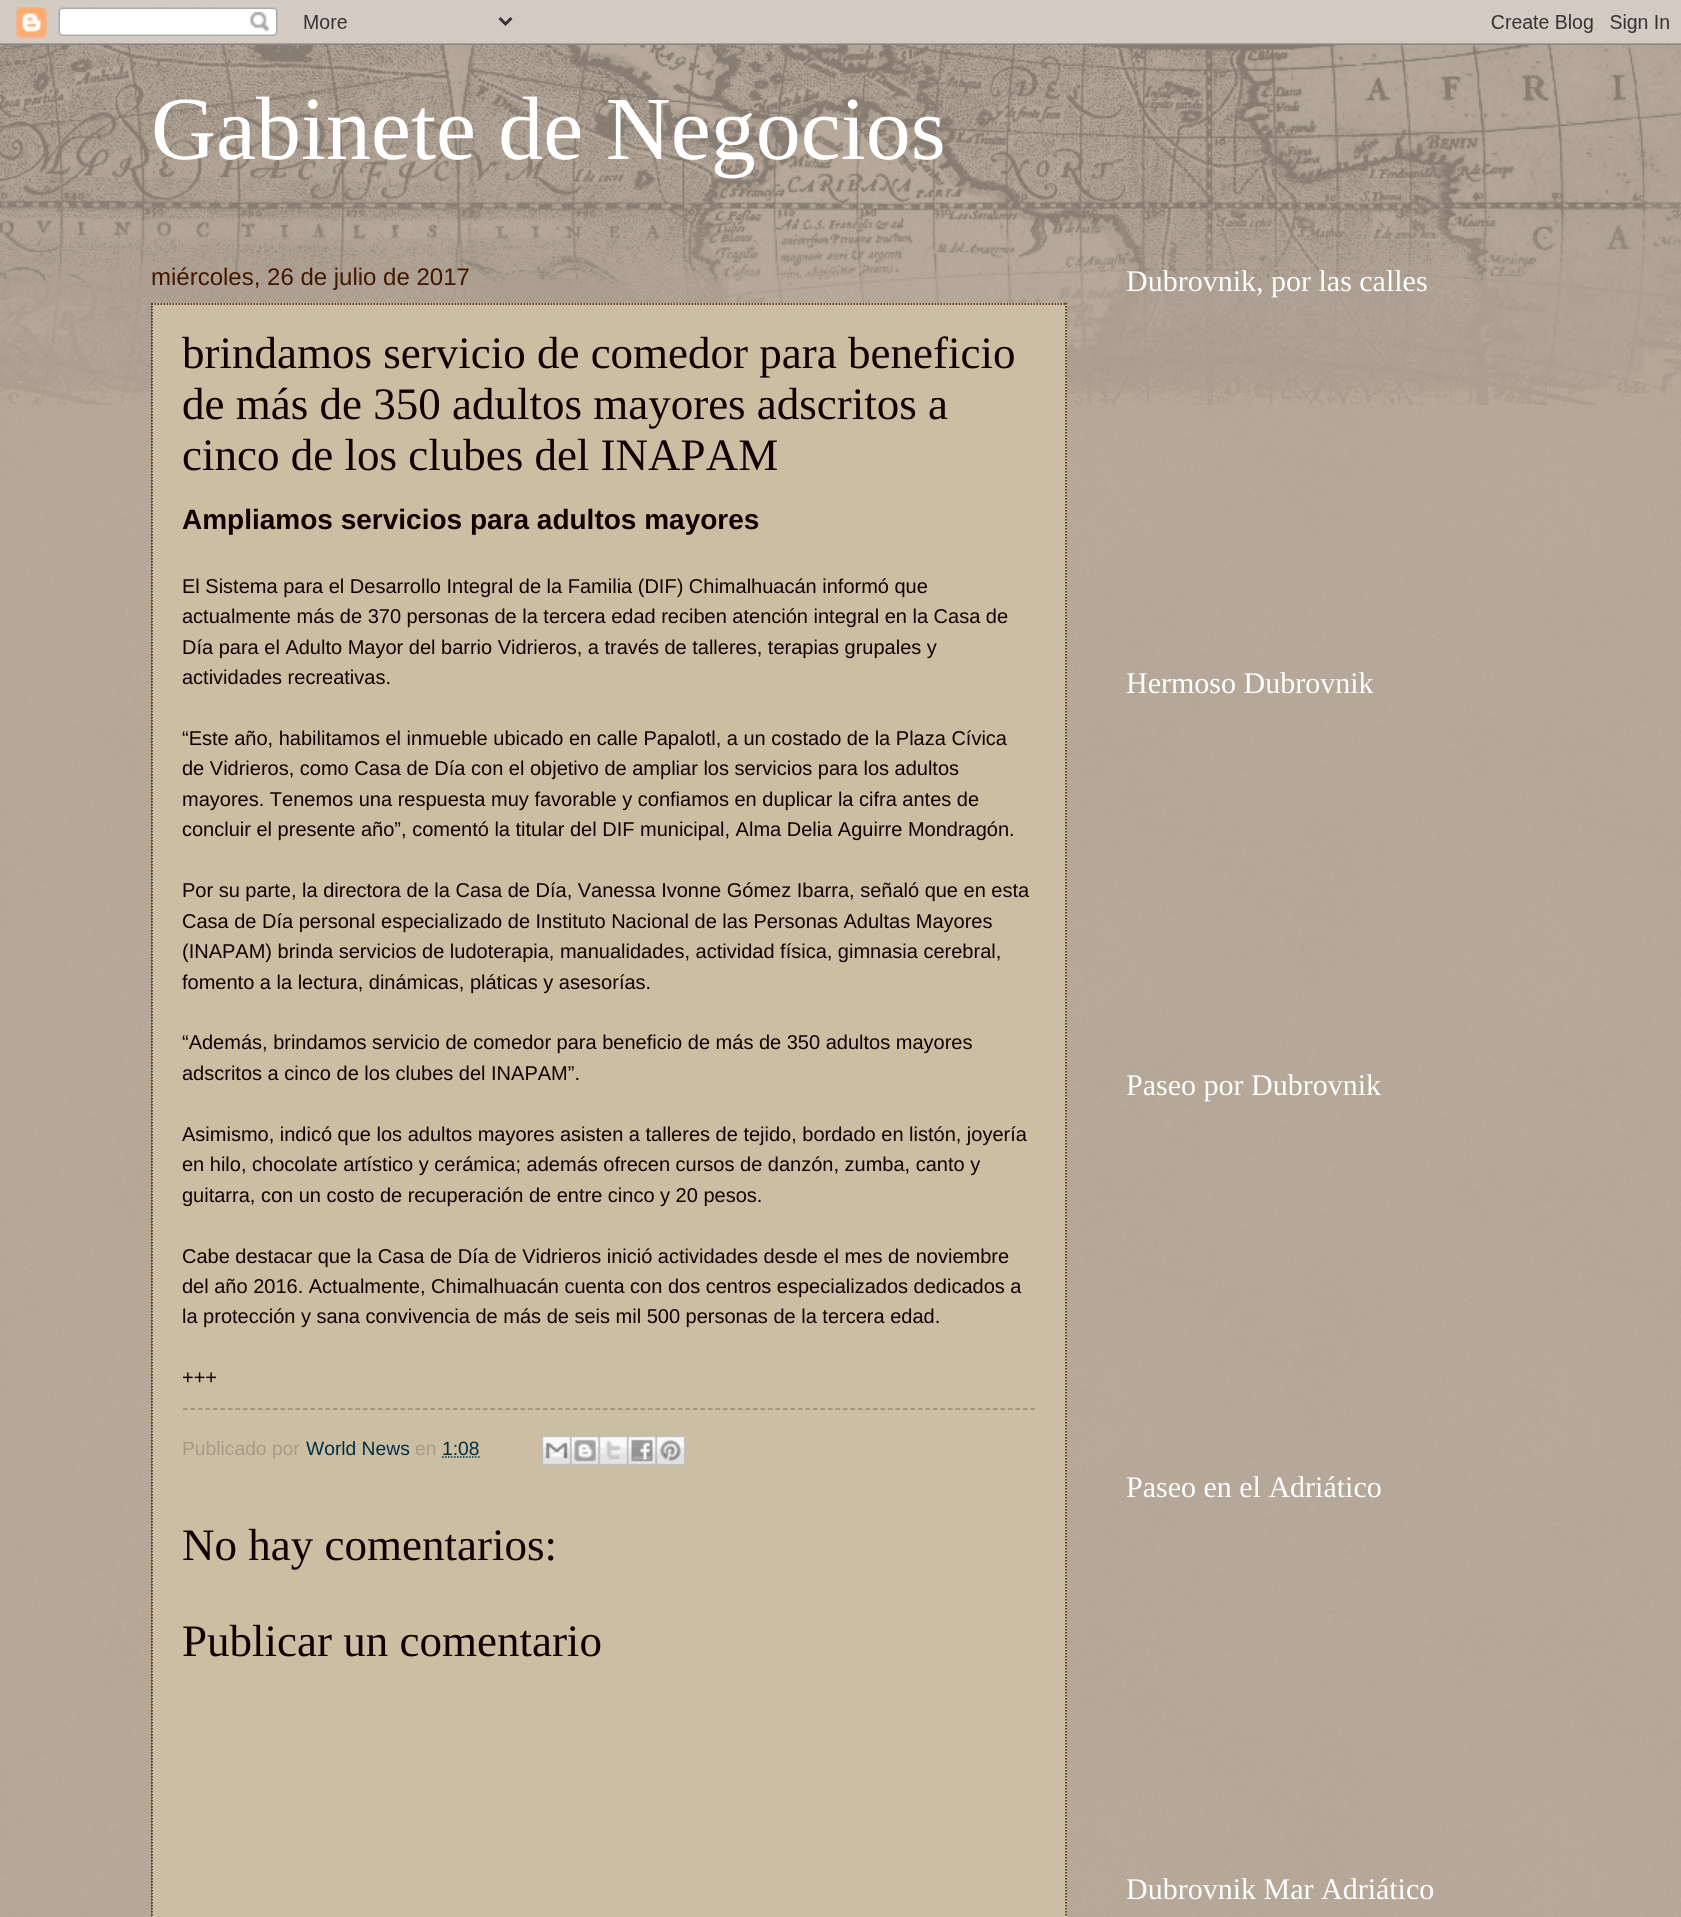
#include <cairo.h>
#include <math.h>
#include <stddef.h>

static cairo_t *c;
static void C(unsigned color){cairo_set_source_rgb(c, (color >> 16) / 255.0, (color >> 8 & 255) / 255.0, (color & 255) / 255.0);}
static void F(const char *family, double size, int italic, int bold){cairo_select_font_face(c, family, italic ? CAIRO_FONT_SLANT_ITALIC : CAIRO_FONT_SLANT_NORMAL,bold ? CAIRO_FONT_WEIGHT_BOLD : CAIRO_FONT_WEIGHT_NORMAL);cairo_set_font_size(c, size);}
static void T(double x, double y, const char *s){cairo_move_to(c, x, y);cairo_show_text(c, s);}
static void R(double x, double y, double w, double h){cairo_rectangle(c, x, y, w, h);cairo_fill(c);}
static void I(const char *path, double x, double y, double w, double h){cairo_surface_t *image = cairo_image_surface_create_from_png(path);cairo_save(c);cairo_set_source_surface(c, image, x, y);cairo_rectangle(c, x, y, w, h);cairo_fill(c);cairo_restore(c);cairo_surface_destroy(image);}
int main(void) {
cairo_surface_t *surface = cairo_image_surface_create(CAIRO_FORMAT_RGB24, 1681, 1917);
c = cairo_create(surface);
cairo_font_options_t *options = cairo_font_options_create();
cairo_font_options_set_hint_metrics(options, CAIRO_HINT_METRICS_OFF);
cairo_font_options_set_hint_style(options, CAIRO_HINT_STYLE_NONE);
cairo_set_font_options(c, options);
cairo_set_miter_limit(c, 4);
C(0xaa9988);
cairo_paint(c);
I("1.png",0,0,1681,1917);
I("2.png",0,0,1681,45);
I("3.png",0,45,1681,360);
F("Liberation Serif",90,0,0);
C(0xffffff);
T(151,159,"Gabinete de Negocios");
F("Liberation Sans",24,0,0);
C(0x441500);
T(151,285,"miércoles, 26 de julio de 2017");
C(0xffeecc);
R(152,303,915,1614);
cairo_set_source_rgba(c,0,0,0,0.2);
R(151,303,916,1614);
cairo_new_path(c);
cairo_move_to(c,151.5,304);
cairo_line_to(c,1066.5,304);
C(0x441500);
cairo_set_line_width(c,1.5);
cairo_set_dash(c,(double[]){1.5,1.5},2,0);
cairo_stroke(c);
cairo_new_path(c);
cairo_move_to(c,1066,303);
cairo_line_to(c,1066,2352);
cairo_stroke(c);
cairo_new_path(c);
cairo_move_to(c,152,303);
cairo_line_to(c,152,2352);
cairo_stroke(c);
F("Liberation Serif",45,0,0);
C(0x110000);
T(182,368,"brindamos servicio de comedor para beneficio");
T(182,419,"de más de 350 adultos mayores adscritos a");
T(182,470,"cinco de los clubes del INAPAM");
F("Liberation Sans",28,0,1);
T(182,529,"Ampliamos servicios para adultos mayores");
F("Liberation Sans",20,0,0);
T(182,593,"El Sistema para el Desarrollo Integral de la Familia (DIF) Chimalhuacán informó que");
T(182,623,"actualmente más de 370 personas de la tercera edad reciben atención integral en la Casa de");
T(182,654,"Día para el Adulto Mayor del barrio Vidrieros, a través de talleres, terapias grupales y");
T(182,684,"actividades recreativas.");
T(182,745,"“Este año, habilitamos el inmueble ubicado en calle Papalotl, a un costado de la Plaza Cívica");
T(182,775,"de Vidrieros, como Casa de Día con el objetivo de ampliar los servicios para los adultos");
T(182,806,"mayores. Tenemos una respuesta muy favorable y confiamos en duplicar la cifra antes de");
T(182,836,"concluir el presente año”, comentó la titular del DIF municipal, Alma Delia Aguirre Mondragón.");
T(182,897,"Por su parte, la directora de la Casa de Día, Vanessa Ivonne Gómez Ibarra, señaló que en esta");
T(182,928,"Casa de Día personal especializado de Instituto Nacional de las Personas Adultas Mayores");
T(182,958,"(INAPAM) brinda servicios de ludoterapia, manualidades, actividad física, gimnasia cerebral,");
T(182,989,"fomento a la lectura, dinámicas, pláticas y asesorías.");
T(182,1049,"“Además, brindamos servicio de comedor para beneficio de más de 350 adultos mayores");
T(182,1080,"adscritos a cinco de los clubes del INAPAM”.");
T(182,1141,"Asimismo, indicó que los adultos mayores asisten a talleres de tejido, bordado en listón, joyería");
T(182,1171,"en hilo, chocolate artístico y cerámica; además ofrecen cursos de danzón, zumba, canto y");
T(182,1202,"guitarra, con un costo de recuperación de entre cinco y 20 pesos.");
T(182,1263,"Cabe destacar que la Casa de Día de Vidrieros inició actividades desde el mes de noviembre");
T(182,1293,"del año 2016. Actualmente, Chimalhuacán cuenta con dos centros especializados dedicados a");
T(182,1323,"la protección y sana convivencia de más de seis mil 500 personas de la tercera edad.");
T(182,1384,"+++");
cairo_new_path(c);
cairo_move_to(c,183,1409);
cairo_line_to(c,1035,1409);
C(0x998877);
cairo_set_dash(c,(double[]){4.5,3},2,0);
cairo_stroke(c);
F("Liberation Sans",19.25,0,0);
C(0xaa9988);
T(182,1455,"Publicado por");
C(0x002f44);
T(306,1455,"World News");
C(0xaa9988);
T(415,1455,"en");
C(0x002f44);
T(442,1455,"1:08");
cairo_new_path(c);
cairo_move_to(c,442,1457);
cairo_line_to(c,479.5,1457);
cairo_set_dash(c,(double[]){1.5,1.5},2,0);
cairo_stroke(c);
I("4.png",541,1435,31,31);
I("5.png",570,1435,30,31);
I("6.png",598,1435,31,31);
I("7.png",627,1435,30,31);
I("8.png",655,1435,31,31);
F("Liberation Serif",45,0,0);
C(0x110000);
T(182,1560,"No hay comentarios:");
T(182,1656,"Publicar un comentario");
F("Liberation Serif",30,0,0);
C(0xffffff);
T(1126,291,"Dubrovnik, por las calles");
T(1126,693,"Hermoso Dubrovnik");
T(1126,1095,"Paseo por Dubrovnik");
T(1126,1497,"Paseo en el Adriático");
T(1126,1899,"Dubrovnik Mar Adriático");
cairo_surface_write_to_png(surface, "o.png");
cairo_font_options_destroy(options);
cairo_destroy(c);
cairo_surface_destroy(surface);
return 0;
}
